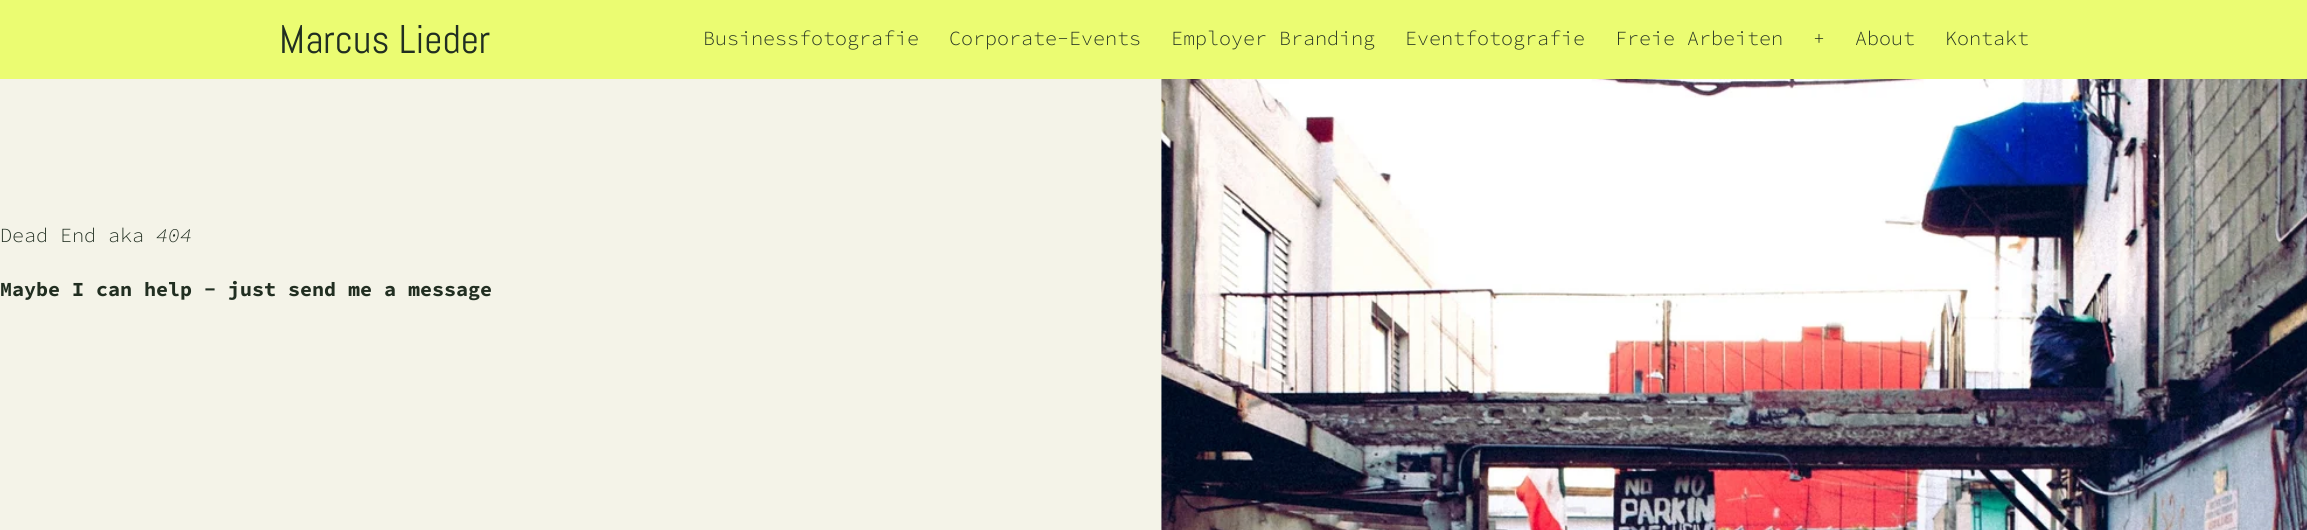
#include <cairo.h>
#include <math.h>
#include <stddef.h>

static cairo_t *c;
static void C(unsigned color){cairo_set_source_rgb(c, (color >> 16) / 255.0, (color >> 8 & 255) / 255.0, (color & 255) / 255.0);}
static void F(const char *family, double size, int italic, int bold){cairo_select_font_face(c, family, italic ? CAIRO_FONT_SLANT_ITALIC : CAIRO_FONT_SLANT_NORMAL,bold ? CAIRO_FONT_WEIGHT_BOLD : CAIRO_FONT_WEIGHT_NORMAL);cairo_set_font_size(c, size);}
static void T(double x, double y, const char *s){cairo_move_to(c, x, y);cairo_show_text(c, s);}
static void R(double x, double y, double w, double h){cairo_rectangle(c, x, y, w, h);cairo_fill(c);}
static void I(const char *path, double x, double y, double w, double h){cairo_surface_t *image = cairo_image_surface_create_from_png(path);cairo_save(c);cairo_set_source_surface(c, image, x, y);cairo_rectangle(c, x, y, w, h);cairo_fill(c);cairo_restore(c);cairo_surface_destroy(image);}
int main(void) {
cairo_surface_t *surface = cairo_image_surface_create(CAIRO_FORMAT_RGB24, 2307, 530);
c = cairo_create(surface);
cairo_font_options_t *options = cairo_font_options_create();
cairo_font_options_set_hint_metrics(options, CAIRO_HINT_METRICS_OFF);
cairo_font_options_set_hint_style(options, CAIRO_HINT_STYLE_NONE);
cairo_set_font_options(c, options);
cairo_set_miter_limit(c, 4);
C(0xf4f3e8);
cairo_paint(c);
C(0xebfc72);
R(0,0,2307,79);
F("Abel",40,0,0);
C(0x212e21);
T(279,53,"Marcus Lieder");
F("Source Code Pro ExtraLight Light",20,0,0);
T(703,45,"Businessfotografie");
T(949,45,"Corporate-Events");
T(1171,45,"Employer Branding");
T(1405,45,"Eventfotografie");
T(1615,45,"Freie Arbeiten");
T(1813,45,"+");
T(1855,45,"About");
T(1945,45,"Kontakt");
T(0,242,"Dead End aka");
F("Source Code Pro ExtraLight Light",20,1,0);
T(156,242,"404");
F("Source Code Pro ExtraLight",20,0,1);
T(0,296,"Maybe I can help - just send me a message");
I("1.png",1161,79,1146,451);
cairo_surface_write_to_png(surface, "o.png");
cairo_font_options_destroy(options);
cairo_destroy(c);
cairo_surface_destroy(surface);
return 0;
}
